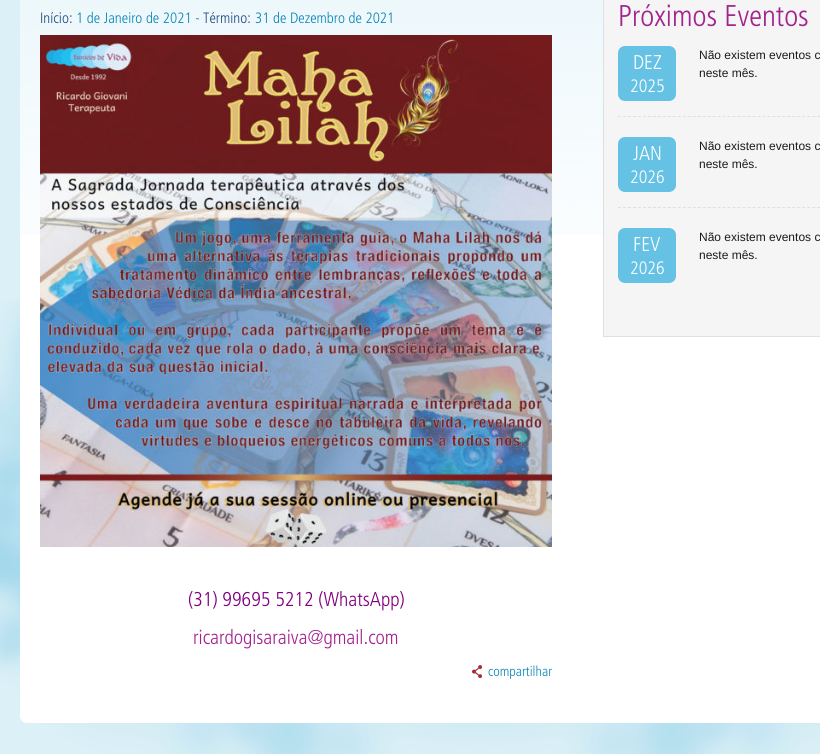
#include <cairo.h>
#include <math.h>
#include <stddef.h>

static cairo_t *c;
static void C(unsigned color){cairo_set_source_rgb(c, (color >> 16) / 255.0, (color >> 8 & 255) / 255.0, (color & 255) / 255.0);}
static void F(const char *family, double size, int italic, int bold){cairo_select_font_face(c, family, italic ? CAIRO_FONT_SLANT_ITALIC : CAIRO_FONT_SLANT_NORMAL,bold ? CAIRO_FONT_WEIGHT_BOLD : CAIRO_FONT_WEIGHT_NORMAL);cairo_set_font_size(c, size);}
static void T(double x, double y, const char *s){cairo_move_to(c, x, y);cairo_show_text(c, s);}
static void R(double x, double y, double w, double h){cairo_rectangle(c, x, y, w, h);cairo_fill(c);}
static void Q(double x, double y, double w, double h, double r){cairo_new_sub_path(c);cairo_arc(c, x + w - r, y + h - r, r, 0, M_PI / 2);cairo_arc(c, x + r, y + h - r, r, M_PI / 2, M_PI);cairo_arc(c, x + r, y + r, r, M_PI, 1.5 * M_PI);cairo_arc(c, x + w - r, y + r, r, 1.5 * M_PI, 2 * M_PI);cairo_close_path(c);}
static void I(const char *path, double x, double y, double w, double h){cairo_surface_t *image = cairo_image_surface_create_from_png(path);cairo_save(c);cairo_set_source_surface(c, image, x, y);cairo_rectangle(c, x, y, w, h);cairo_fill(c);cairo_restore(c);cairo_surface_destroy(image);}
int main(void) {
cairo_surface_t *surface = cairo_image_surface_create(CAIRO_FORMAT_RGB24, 820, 754);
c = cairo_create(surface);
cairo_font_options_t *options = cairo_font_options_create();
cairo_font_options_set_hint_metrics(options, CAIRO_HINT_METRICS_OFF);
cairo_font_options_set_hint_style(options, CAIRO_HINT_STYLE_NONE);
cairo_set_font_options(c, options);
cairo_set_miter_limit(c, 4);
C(0xdcf0f7);
cairo_paint(c);
I("1.png",0,299,820,455);
C(0xffffff);
cairo_new_path(c);
cairo_move_to(c,20,-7);
cairo_line_to(c,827,-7);
cairo_line_to(c,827,716);
cairo_curve_to(c,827,720,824,723,820,723);
cairo_line_to(c,27,723);
cairo_curve_to(c,23,723,20,720,20,716);
cairo_close_path(c);
cairo_fill(c);
I("2.png",20,0,583,235);
F("Frutiger Light",15,0,0);
C(0x204c81);
T(40,23,"Início:");
C(0x0b87b6);
T(76,23,"1 de Janeiro de 2021 -");
C(0x204c81);
T(203,23,"Término:");
C(0x0b87b6);
T(255,23,"31 de Dezembro de 2021");
I("3.png",40,35,512,512);
F("Frutiger Light",20,0,0);
C(0x800080);
T(188,606,"(31) 99695 5212 (WhatsApp)");
C(0xa3238e);
T(193,644,"ricardogisaraiva@gmail.com");
I("4.png",472,665,10,13);
F("Frutiger Light",14,0,0);
C(0x0b87b6);
T(488,676,"compartilhar");
cairo_rectangle(c,603.5,-.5,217,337);
C(0xdfdfdf);
cairo_set_line_width(c,1);
cairo_stroke(c);
C(0xf5f5f5);
R(604,0,216,336);
F("Frutiger Light",30,0,0);
C(0xa3238e);
T(618,26,"Próximos Eventos");
C(0x65c2e5);
Q(618,46,58,55,7);
cairo_fill(c);
F("Frutiger Light",20,0,0);
C(0xffffff);
T(633,69,"DEZ");
F("Frutiger Light",18,0,0);
T(630,92,"2025");
F("Liberation Sans",12,0,0);
C(0x1a1a1a);
T(699,59,"Não existem eventos c");
T(699,77,"neste mês.");
cairo_new_path(c);
cairo_move_to(c,618,116.5);
cairo_line_to(c,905,116.5);
C(0xdfdfdf);
cairo_set_dash(c,(double[]){3,1.98},2,0);
cairo_stroke(c);
C(0x65c2e5);
Q(618,137,58,55,7);
cairo_fill(c);
F("Frutiger Light",20,0,0);
C(0xffffff);
T(633,160,"JAN");
F("Frutiger Light",18,0,0);
T(630,183,"2026");
F("Liberation Sans",12,0,0);
C(0x1a1a1a);
T(699,150,"Não existem eventos c");
T(699,168,"neste mês.");
cairo_new_path(c);
cairo_move_to(c,618,207.5);
cairo_line_to(c,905,207.5);
C(0xdfdfdf);
cairo_stroke(c);
C(0x65c2e5);
Q(618,228,58,55,7);
cairo_fill(c);
F("Frutiger Light",20,0,0);
C(0xffffff);
T(633,251,"FEV");
F("Frutiger Light",18,0,0);
T(630,274,"2026");
F("Liberation Sans",12,0,0);
C(0x1a1a1a);
T(699,241,"Não existem eventos c");
T(699,259,"neste mês.");
cairo_surface_write_to_png(surface, "o.png");
cairo_font_options_destroy(options);
cairo_destroy(c);
cairo_surface_destroy(surface);
return 0;
}
